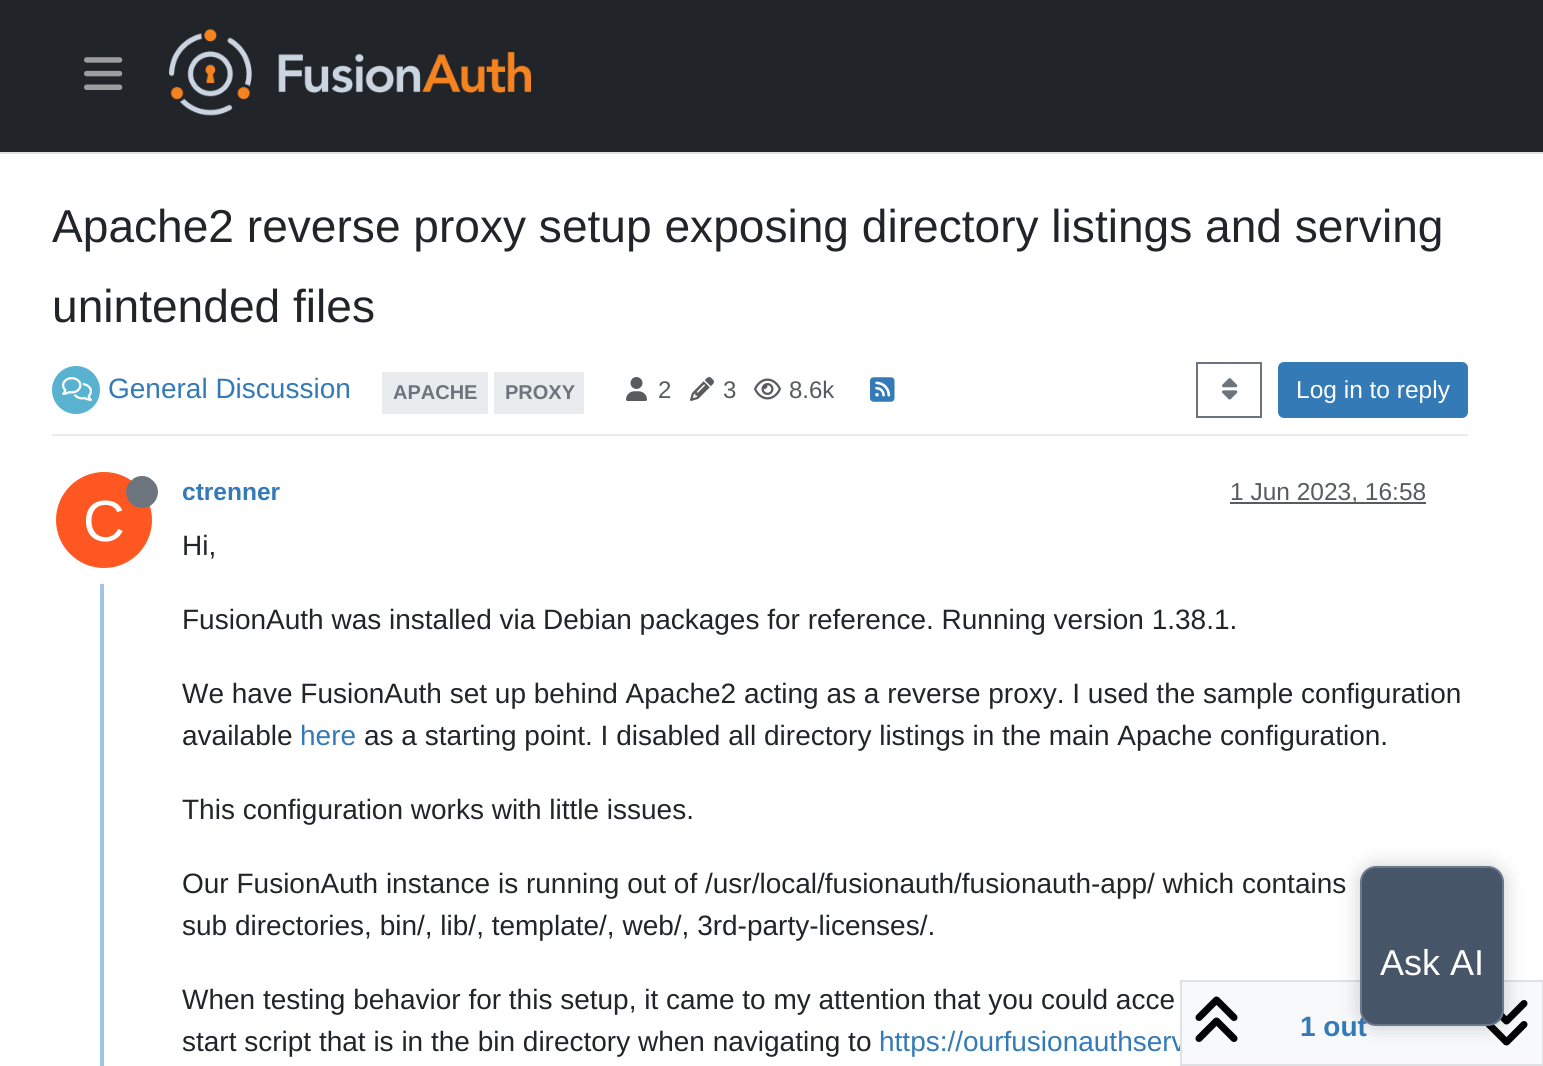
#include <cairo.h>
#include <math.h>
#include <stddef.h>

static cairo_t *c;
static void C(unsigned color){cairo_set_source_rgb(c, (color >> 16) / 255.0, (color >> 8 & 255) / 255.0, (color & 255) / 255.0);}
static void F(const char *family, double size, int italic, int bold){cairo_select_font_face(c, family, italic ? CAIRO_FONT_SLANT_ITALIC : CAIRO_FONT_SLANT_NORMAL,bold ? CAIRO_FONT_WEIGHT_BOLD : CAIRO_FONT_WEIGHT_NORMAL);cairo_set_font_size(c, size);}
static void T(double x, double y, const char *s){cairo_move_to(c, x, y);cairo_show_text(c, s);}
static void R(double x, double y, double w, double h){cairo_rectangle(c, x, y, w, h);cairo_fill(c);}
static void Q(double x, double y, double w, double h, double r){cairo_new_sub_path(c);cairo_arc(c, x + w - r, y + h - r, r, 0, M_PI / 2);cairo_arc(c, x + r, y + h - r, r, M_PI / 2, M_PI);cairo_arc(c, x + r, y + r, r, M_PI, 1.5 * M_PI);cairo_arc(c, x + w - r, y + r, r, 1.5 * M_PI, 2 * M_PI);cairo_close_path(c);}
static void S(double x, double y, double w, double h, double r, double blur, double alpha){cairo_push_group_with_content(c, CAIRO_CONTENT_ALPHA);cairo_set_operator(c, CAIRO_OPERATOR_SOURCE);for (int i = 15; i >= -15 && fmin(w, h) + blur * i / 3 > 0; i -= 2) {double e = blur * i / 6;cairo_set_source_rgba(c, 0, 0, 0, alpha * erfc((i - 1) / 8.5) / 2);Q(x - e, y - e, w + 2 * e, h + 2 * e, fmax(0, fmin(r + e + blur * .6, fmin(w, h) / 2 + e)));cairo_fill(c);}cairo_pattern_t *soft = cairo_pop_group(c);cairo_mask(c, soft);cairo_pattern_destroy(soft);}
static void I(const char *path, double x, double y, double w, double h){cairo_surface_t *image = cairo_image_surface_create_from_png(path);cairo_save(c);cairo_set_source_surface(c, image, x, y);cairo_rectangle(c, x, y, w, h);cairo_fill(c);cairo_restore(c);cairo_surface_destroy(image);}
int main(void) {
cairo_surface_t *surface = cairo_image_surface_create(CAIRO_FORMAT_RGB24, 1543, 1066);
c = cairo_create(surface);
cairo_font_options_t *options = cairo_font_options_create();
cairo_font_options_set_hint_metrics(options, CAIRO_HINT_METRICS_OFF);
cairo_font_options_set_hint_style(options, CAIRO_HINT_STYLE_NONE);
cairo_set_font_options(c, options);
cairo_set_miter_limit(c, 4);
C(0xffffff);
cairo_paint(c);
C(0x212529);
R(0,0,1543,152);
C(0xdee2e6);
R(0,152,1543,2);
I("1.png",84,57,39,33);
I("2.png",169,29,362,87);
F("Liberation Sans",46.1,0,0);
C(0x212529);
T(52,242,"Apache2 reverse proxy setup exposing directory listings and serving");
T(52,322,"unintended files");
C(0xe9ecef);
R(52,434,1416,2);
C(0x59b3d0);
cairo_new_path(c);
cairo_arc(c,76,390,24,0,2 * M_PI);
cairo_fill(c);
I("3.png",62,377,30,24);
F("Liberation Sans",28,0,0);
C(0x337ab7);
T(108,398,"General Discussion");
C(0xe9ecef);
R(382,372,106,42);
F("Liberation Sans",20,0,1);
C(0x6c757d);
T(393,399,"APACHE");
C(0xe9ecef);
R(494,372,90,42);
C(0x6c757d);
T(505,399,"PROXY");
I("4.png",626,377,21,24);
F("Liberation Sans",24,0,0);
C(0x585b5e);
T(658,398,"2");
I("5.png",690,377,24,24);
T(723,398,"3");
I("6.png",754,378,27,22);
T(789,398,"8.6k");
I("7.png",870,377,25,25);
cairo_rectangle(c,1197,363,64,54);
C(0x6c757d);
cairo_stroke(c);
I("8.png",1222,378,16,22);
C(0x337ab7);
Q(1279,363,188,54,5);
cairo_fill_preserve(c);
cairo_stroke(c);
F("Liberation Sans",24.5,0,0);
C(0xffffff);
T(1296,398,"Log in to reply");
C(0xa0c4e4);
R(100,468,4,598);
F("Liberation Sans",24.5,0,1);
C(0x337ab7);
T(182,500,"ctrenner");
C(0x595c5f);
R(1230,502,196,2);
F("Liberation Sans",24.5,0,0);
C(0x585b5e);
T(1230,500,"1 Jun 2023, 16:58");
cairo_new_path(c);
cairo_arc(c,104,520,56,0,2 * M_PI);
C(0xffffff);
cairo_set_line_width(c,16);
cairo_stroke(c);
C(0xff5722);
cairo_arc(c,104,520,48,0,2 * M_PI);
cairo_fill(c);
C(0x6c757d);
cairo_new_path(c);
cairo_move_to(c,142,508);
cairo_curve_to(c,157,508,164,488.5,151.5,479.5);
cairo_curve_to(c,149,477,145.5,476,142,476);
cairo_curve_to(c,138.5,476,135,477,132.5,479.5);
cairo_curve_to(c,120,488.5,127,508,142,508);
cairo_close_path(c);
cairo_fill(c);
F("Liberation Sans",58,0,0);
C(0xffffff);
T(83,541,"C");
F("Liberation Sans",28,0,0);
C(0x212529);
T(182,555,"Hi,");
T(182,629,"FusionAuth was installed via Debian packages for reference. Running version 1.38.1.");
T(182,703,"We have FusionAuth set up behind Apache2 acting as a reverse proxy. I used the sample configuration");
T(182,745,"available");
C(0x337ab7);
T(300,745,"here");
C(0x212529);
T(364,745,"as a starting point. I disabled all directory listings in the main Apache configuration.");
T(182,819,"This configuration works with little issues.");
T(182,893,"Our FusionAuth instance is running out of /usr/local/fusionauth/fusionauth-app/ which contains");
T(182,935,"sub directories, bin/, lib/, template/, web/, 3rd-party-licenses/.");
T(182,1009,"When testing behavior for this setup, it came to my attention that you could acce");
T(182,1051,"start script that is in the bin directory when navigating to");
C(0x337ab7);
T(879,1051,"https://ourfusionauthserv");
C(0xf8f9fa);
cairo_rectangle(c,1181,981,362,84);
cairo_fill_preserve(c);
C(0xdee2e6);
cairo_set_line_width(c,2);
cairo_stroke(c);
I("9.png",1195,996,43,46);
F("Liberation Sans",28,0,1);
C(0x337ab7);
T(1300,1036,"1 out");
I("10.png",1486,1000,42,46);
C(0x000000);
S(1360,866,144,160,16,10,.2);
C(0x475569);
Q(1361,867,142,158,15);
cairo_fill_preserve(c);
C(0x6a788e);
cairo_stroke(c);
F("Liberation Sans",36,0,0);
C(0xffffff);
T(1380,975,"Ask AI");
cairo_surface_write_to_png(surface, "o.png");
cairo_font_options_destroy(options);
cairo_destroy(c);
cairo_surface_destroy(surface);
return 0;
}
